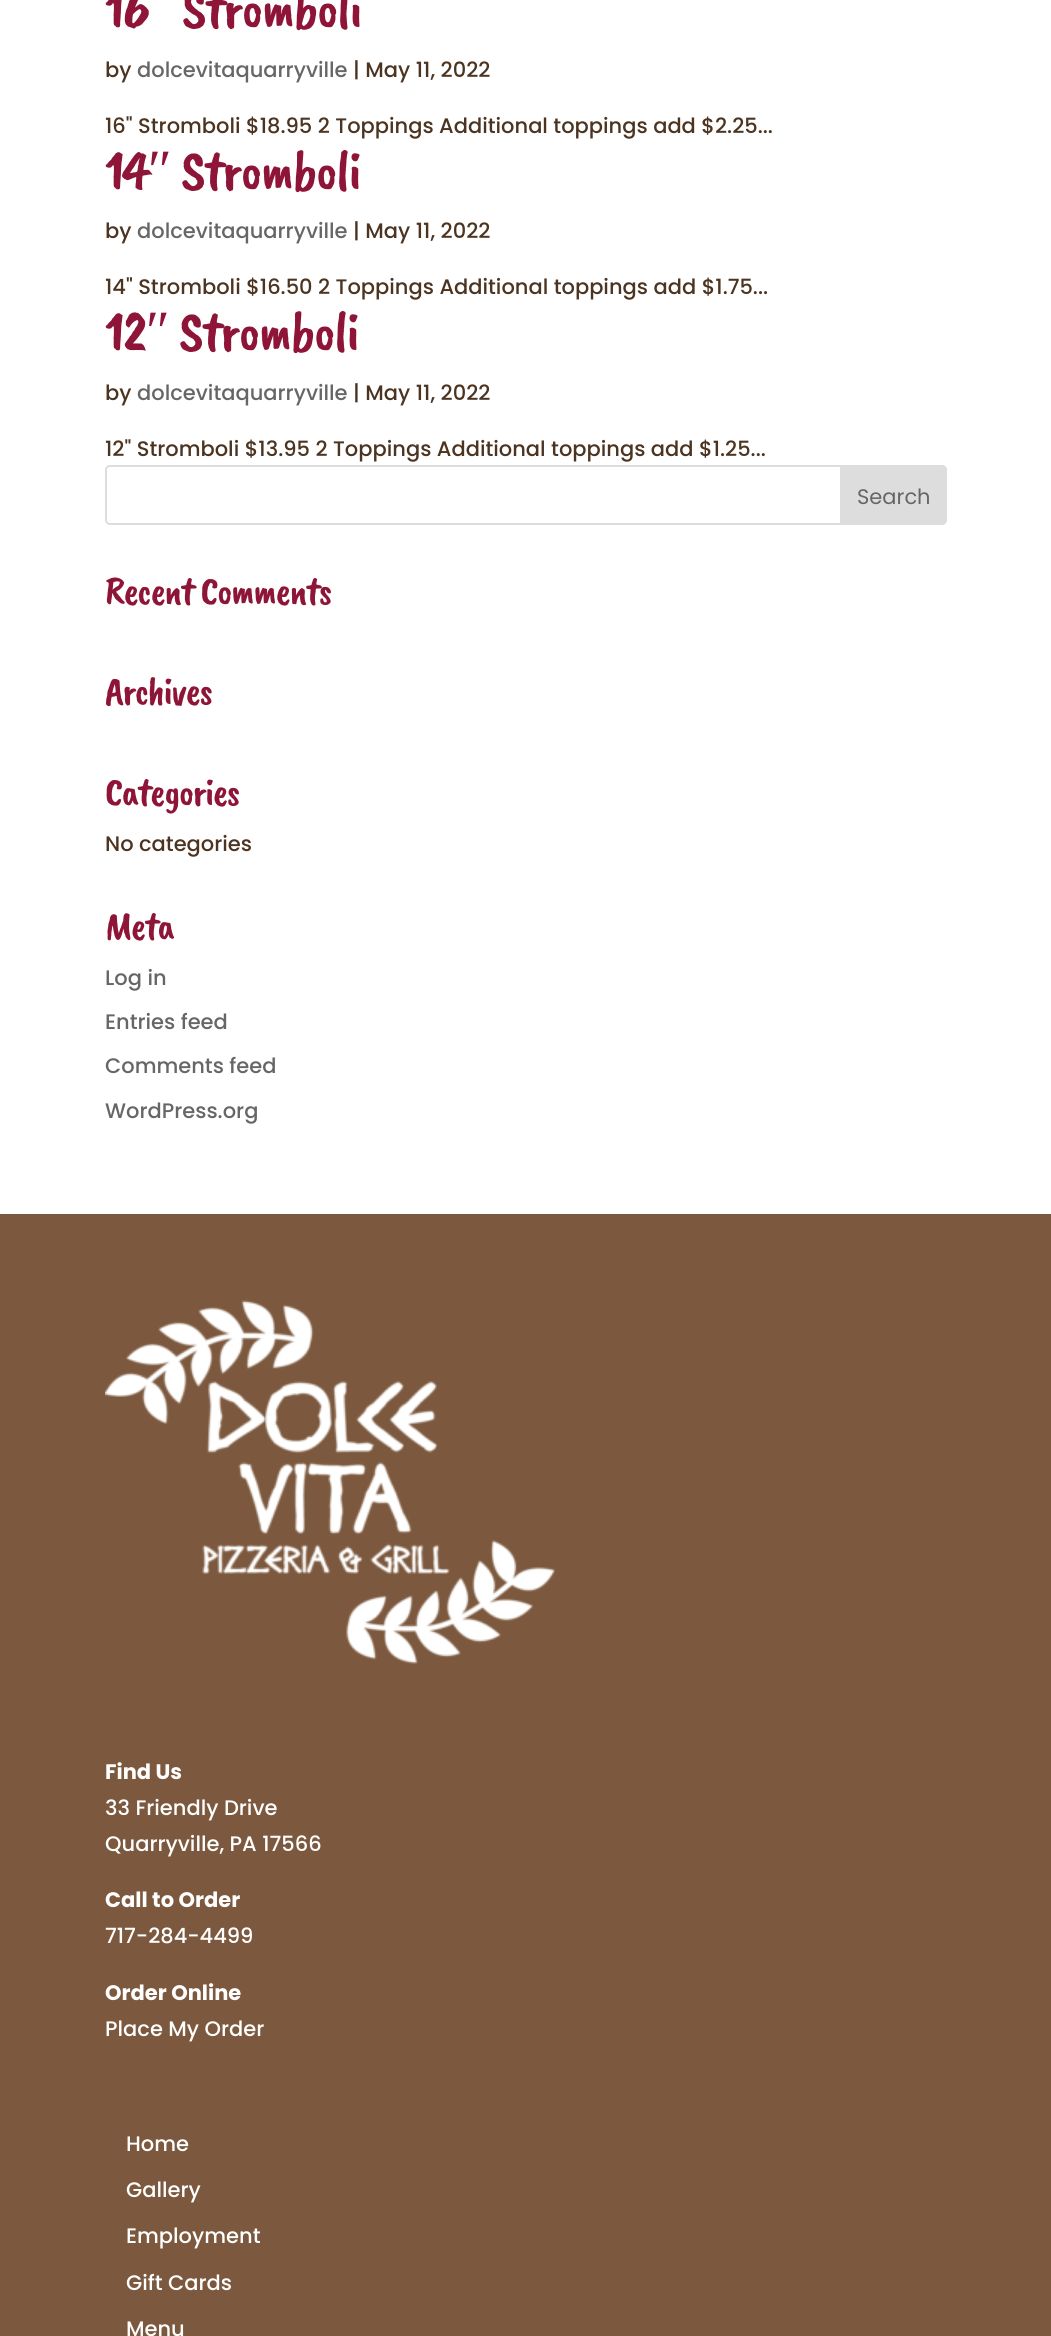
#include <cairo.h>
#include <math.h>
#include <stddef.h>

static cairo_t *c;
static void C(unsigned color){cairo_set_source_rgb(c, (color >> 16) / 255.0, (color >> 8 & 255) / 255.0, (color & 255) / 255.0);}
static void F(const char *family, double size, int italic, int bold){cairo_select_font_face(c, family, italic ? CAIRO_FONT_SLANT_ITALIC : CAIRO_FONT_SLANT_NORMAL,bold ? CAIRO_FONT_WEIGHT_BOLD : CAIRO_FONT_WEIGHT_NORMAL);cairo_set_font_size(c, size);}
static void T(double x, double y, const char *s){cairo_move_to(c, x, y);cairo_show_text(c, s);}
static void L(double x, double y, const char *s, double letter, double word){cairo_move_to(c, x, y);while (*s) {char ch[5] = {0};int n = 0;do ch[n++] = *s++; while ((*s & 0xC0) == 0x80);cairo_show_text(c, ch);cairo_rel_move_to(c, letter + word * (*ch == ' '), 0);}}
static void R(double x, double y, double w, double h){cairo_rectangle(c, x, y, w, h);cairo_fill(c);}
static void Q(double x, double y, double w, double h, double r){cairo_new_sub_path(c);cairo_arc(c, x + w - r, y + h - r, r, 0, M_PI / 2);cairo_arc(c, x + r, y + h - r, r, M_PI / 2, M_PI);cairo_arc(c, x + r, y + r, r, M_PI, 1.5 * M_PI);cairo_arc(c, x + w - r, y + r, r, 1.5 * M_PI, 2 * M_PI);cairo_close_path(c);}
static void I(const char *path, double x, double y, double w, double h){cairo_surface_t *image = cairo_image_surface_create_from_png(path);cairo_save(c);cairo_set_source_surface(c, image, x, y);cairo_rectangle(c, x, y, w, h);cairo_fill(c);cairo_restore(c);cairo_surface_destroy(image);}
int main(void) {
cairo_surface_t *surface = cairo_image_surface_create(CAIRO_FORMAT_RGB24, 1051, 2336);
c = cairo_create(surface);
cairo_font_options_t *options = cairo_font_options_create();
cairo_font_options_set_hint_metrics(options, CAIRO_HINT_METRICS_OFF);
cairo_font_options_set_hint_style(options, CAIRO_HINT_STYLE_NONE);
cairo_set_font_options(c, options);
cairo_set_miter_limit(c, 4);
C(0xffffff);
cairo_paint(c);
F("Caveat Brush",57,0,0);
C(0x8e1537);
L(105,27,"16",-1.5,0);
L(182,27,"Stromboli",-1.5,0);
F("Poppins Medium",21,0,0);
C(0x4c3420);
T(105,77,"by");
C(0x666666);
T(137,77,"dolcevitaquarryville");
C(0x4c3420);
T(353,77,"| May 11, 2022");
T(105,133,"16\" Stromboli $18.95 2 Toppings Additional toppings add $2.25...");
F("Caveat Brush",57,0,0);
C(0x8e1537);
L(105,189,"14",-1.5,0);
F("Liberation Serif",57,0,0);
L(148,189,"″",-1.5,0);
F("Caveat Brush",57,0,0);
L(181,189,"Stromboli",-1.5,0);
F("Poppins Medium",21,0,0);
C(0x4c3420);
T(105,238,"by");
C(0x666666);
T(137,238,"dolcevitaquarryville");
C(0x4c3420);
T(353,238,"| May 11, 2022");
T(105,294,"14\" Stromboli $16.50 2 Toppings Additional toppings add $1.75...");
F("Caveat Brush",57,0,0);
C(0x8e1537);
L(105,350,"12",-1.5,0);
F("Liberation Serif",57,0,0);
L(146,350,"″",-1.5,0);
F("Caveat Brush",57,0,0);
L(179,350,"Stromboli",-1.5,0);
F("Poppins Medium",21,0,0);
C(0x4c3420);
T(105,400,"by");
C(0x666666);
T(137,400,"dolcevitaquarryville");
C(0x4c3420);
T(353,400,"| May 11, 2022");
T(105,456,"12\" Stromboli $13.95 2 Toppings Additional toppings add $1.25...");
Q(106,466,840,58,4);
C(0xdddddd);
cairo_stroke(c);
cairo_new_path(c);
cairo_move_to(c,841,466);
cairo_line_to(c,942,466);
cairo_curve_to(c,944,466,946,468,946,470);
cairo_line_to(c,946,520);
cairo_curve_to(c,946,522,944,524,942,524);
cairo_line_to(c,841,524);
cairo_close_path(c);
cairo_fill_preserve(c);
cairo_stroke(c);
F("Poppins",21,0,0);
C(0x666666);
T(857,504,"Search");
F("Caveat Brush",40.5,0,0);
C(0x8e1537);
L(105,604,"Recent Comments",-1.5,0);
L(105,704,"Archives",-1.5,0);
L(105,805,"Categories",-1.5,0);
F("Poppins Medium",21,0,0);
C(0x4c3420);
T(105,851,"No categories");
F("Caveat Brush",40.5,0,0);
C(0x8e1537);
L(105,939,"Meta",-1.5,0);
F("Poppins Medium",21,0,0);
C(0x666666);
T(105,985,"Log in");
T(105,1029,"Entries feed");
T(105,1073,"Comments feed");
T(105,1118,"WordPress.org");
C(0x7c593e);
R(0,1214,1051,1122);
I("1.png",105,1300,450,364);
F("Poppins",21,0,1);
C(0xffffff);
T(105,1779,"Find Us");
F("Poppins Medium",21,0,0);
T(105,1815,"33 Friendly Drive");
T(105,1851,"Quarryville, PA 17566");
F("Poppins",21,0,1);
T(105,1907,"Call to Order");
F("Poppins Medium",21,0,0);
T(105,1943,"717-284-4499");
F("Poppins",21,0,1);
T(105,2000,"Order Online");
F("Poppins Medium",21,0,0);
T(105,2036,"Place My Order");
T(126,2151,"Home");
T(126,2197,"Gallery");
T(126,2243,"Employment");
T(126,2290,"Gift Cards");
T(126,2336,"Menu");
cairo_surface_write_to_png(surface, "o.png");
cairo_font_options_destroy(options);
cairo_destroy(c);
cairo_surface_destroy(surface);
return 0;
}
